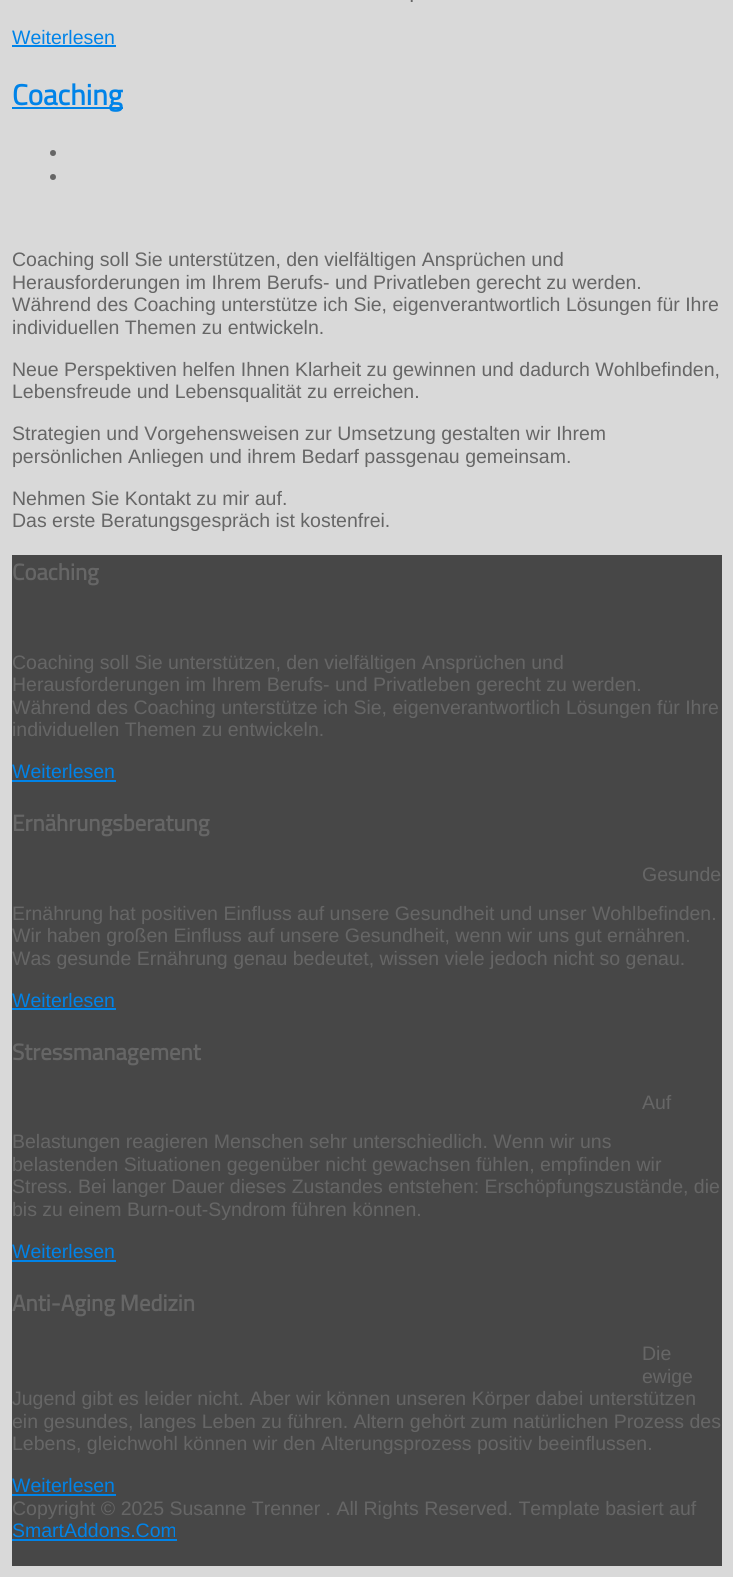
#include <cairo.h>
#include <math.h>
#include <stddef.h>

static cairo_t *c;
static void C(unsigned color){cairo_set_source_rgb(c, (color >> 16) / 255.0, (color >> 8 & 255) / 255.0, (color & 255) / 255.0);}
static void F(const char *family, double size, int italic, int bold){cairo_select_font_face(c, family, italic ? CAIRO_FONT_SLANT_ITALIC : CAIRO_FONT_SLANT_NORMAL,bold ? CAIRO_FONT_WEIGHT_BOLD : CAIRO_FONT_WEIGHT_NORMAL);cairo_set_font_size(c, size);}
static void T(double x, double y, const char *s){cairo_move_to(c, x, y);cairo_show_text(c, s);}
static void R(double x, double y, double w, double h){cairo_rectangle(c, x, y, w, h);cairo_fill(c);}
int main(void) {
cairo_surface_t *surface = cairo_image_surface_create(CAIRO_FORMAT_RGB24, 733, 1577);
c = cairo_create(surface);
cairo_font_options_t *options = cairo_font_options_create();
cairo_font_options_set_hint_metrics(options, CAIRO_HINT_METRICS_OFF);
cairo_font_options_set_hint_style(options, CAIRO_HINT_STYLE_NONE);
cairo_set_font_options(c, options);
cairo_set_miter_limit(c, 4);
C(0xd9d9d9);
cairo_paint(c);
F("Liberation Sans",19.5,0,0);
C(0x666666);
T(409,2,".");
C(0x0083e8);
T(12,44,"Weiterlesen");
R(12,45,104,2);
R(12,107,111,2);
F("Titillium Web",29,0,1);
T(12,105,"Coaching");
C(0x666666);
cairo_new_path(c);
cairo_arc(c,53,153,3,0,2 * M_PI);
cairo_fill(c);
cairo_arc(c,53,177,3,0,2 * M_PI);
cairo_fill(c);
F("Liberation Sans",19.5,0,0);
T(12,266,"Coaching soll Sie unterstützen, den vielfältigen Ansprüchen und");
T(12,289,"Herausforderungen im Ihrem Berufs- und Privatleben gerecht zu werden.");
T(12,311,"Während des Coaching unterstütze ich Sie, eigenverantwortlich Lösungen für Ihre");
T(12,334,"individuellen Themen zu entwickeln.");
T(12,376,"Neue Perspektiven helfen Ihnen Klarheit zu gewinnen und dadurch Wohlbefinden,");
T(12,398,"Lebensfreude und Lebensqualität zu erreichen.");
T(12,440,"Strategien und Vorgehensweisen zur Umsetzung gestalten wir Ihrem");
T(12,463,"persönlichen Anliegen und ihrem Bedarf passgenau gemeinsam.");
T(12,505,"Nehmen Sie Kontakt zu mir auf.");
T(12,527,"Das erste Beratungsgespräch ist kostenfrei.");
C(0x474747);
R(12,555,710,1011);
F("Titillium Web",22.75,0,1);
C(0x666666);
T(12,580,"Coaching");
F("Liberation Sans",19.5,0,0);
T(12,669,"Coaching soll Sie unterstützen, den vielfältigen Ansprüchen und");
T(12,691,"Herausforderungen im Ihrem Berufs- und Privatleben gerecht zu werden.");
T(12,714,"Während des Coaching unterstütze ich Sie, eigenverantwortlich Lösungen für Ihre");
T(12,736,"individuellen Themen zu entwickeln.");
C(0x0083e8);
T(12,778,"Weiterlesen");
R(12,780,104,2);
F("Titillium Web",22.75,0,1);
C(0x666666);
T(12,831,"Ernährungsberatung");
F("Liberation Sans",19.5,0,0);
T(642,881,"Gesunde");
T(12,920,"Ernährung hat positiven Einfluss auf unsere Gesundheit und unser Wohlbefinden.");
T(12,942,"Wir haben großen Einfluss auf unsere Gesundheit, wenn wir uns gut ernähren.");
T(12,965,"Was gesunde Ernährung genau bedeutet, wissen viele jedoch nicht so genau.");
C(0x0083e8);
T(12,1007,"Weiterlesen");
R(12,1008,104,2);
F("Titillium Web",22.75,0,1);
C(0x666666);
T(12,1060,"Stressmanagement");
F("Liberation Sans",19.5,0,0);
T(642,1109,"Auf");
T(12,1148,"Belastungen reagieren Menschen sehr unterschiedlich. Wenn wir uns");
T(12,1171,"belastenden Situationen gegenüber nicht gewachsen fühlen, empfinden wir");
T(12,1193,"Stress. Bei langer Dauer dieses Zustandes entstehen: Erschöpfungszustände, die");
T(12,1216,"bis zu einem Burn-out-Syndrom führen können.");
C(0x0083e8);
T(12,1258,"Weiterlesen");
R(12,1260,104,2);
F("Titillium Web",22.75,0,1);
C(0x666666);
T(12,1311,"Anti-Aging Medizin");
F("Liberation Sans",19.5,0,0);
T(642,1360,"Die");
T(642,1383,"ewige");
T(12,1405,"Jugend gibt es leider nicht. Aber wir können unseren Körper dabei unterstützen");
T(12,1428,"ein gesundes, langes Leben zu führen. Altern gehört zum natürlichen Prozess des");
T(12,1450,"Lebens, gleichwohl können wir den Alterungsprozess positiv beeinflussen.");
C(0x0083e8);
T(12,1492,"Weiterlesen");
R(12,1494,104,2);
C(0x666666);
T(12,1515,"Copyright © 2025 Susanne Trenner . All Rights Reserved. Template basiert auf");
C(0x0083e8);
T(12,1537,"SmartAddons.Com");
R(12,1539,165,2);
cairo_surface_write_to_png(surface, "o.png");
cairo_font_options_destroy(options);
cairo_destroy(c);
cairo_surface_destroy(surface);
return 0;
}
